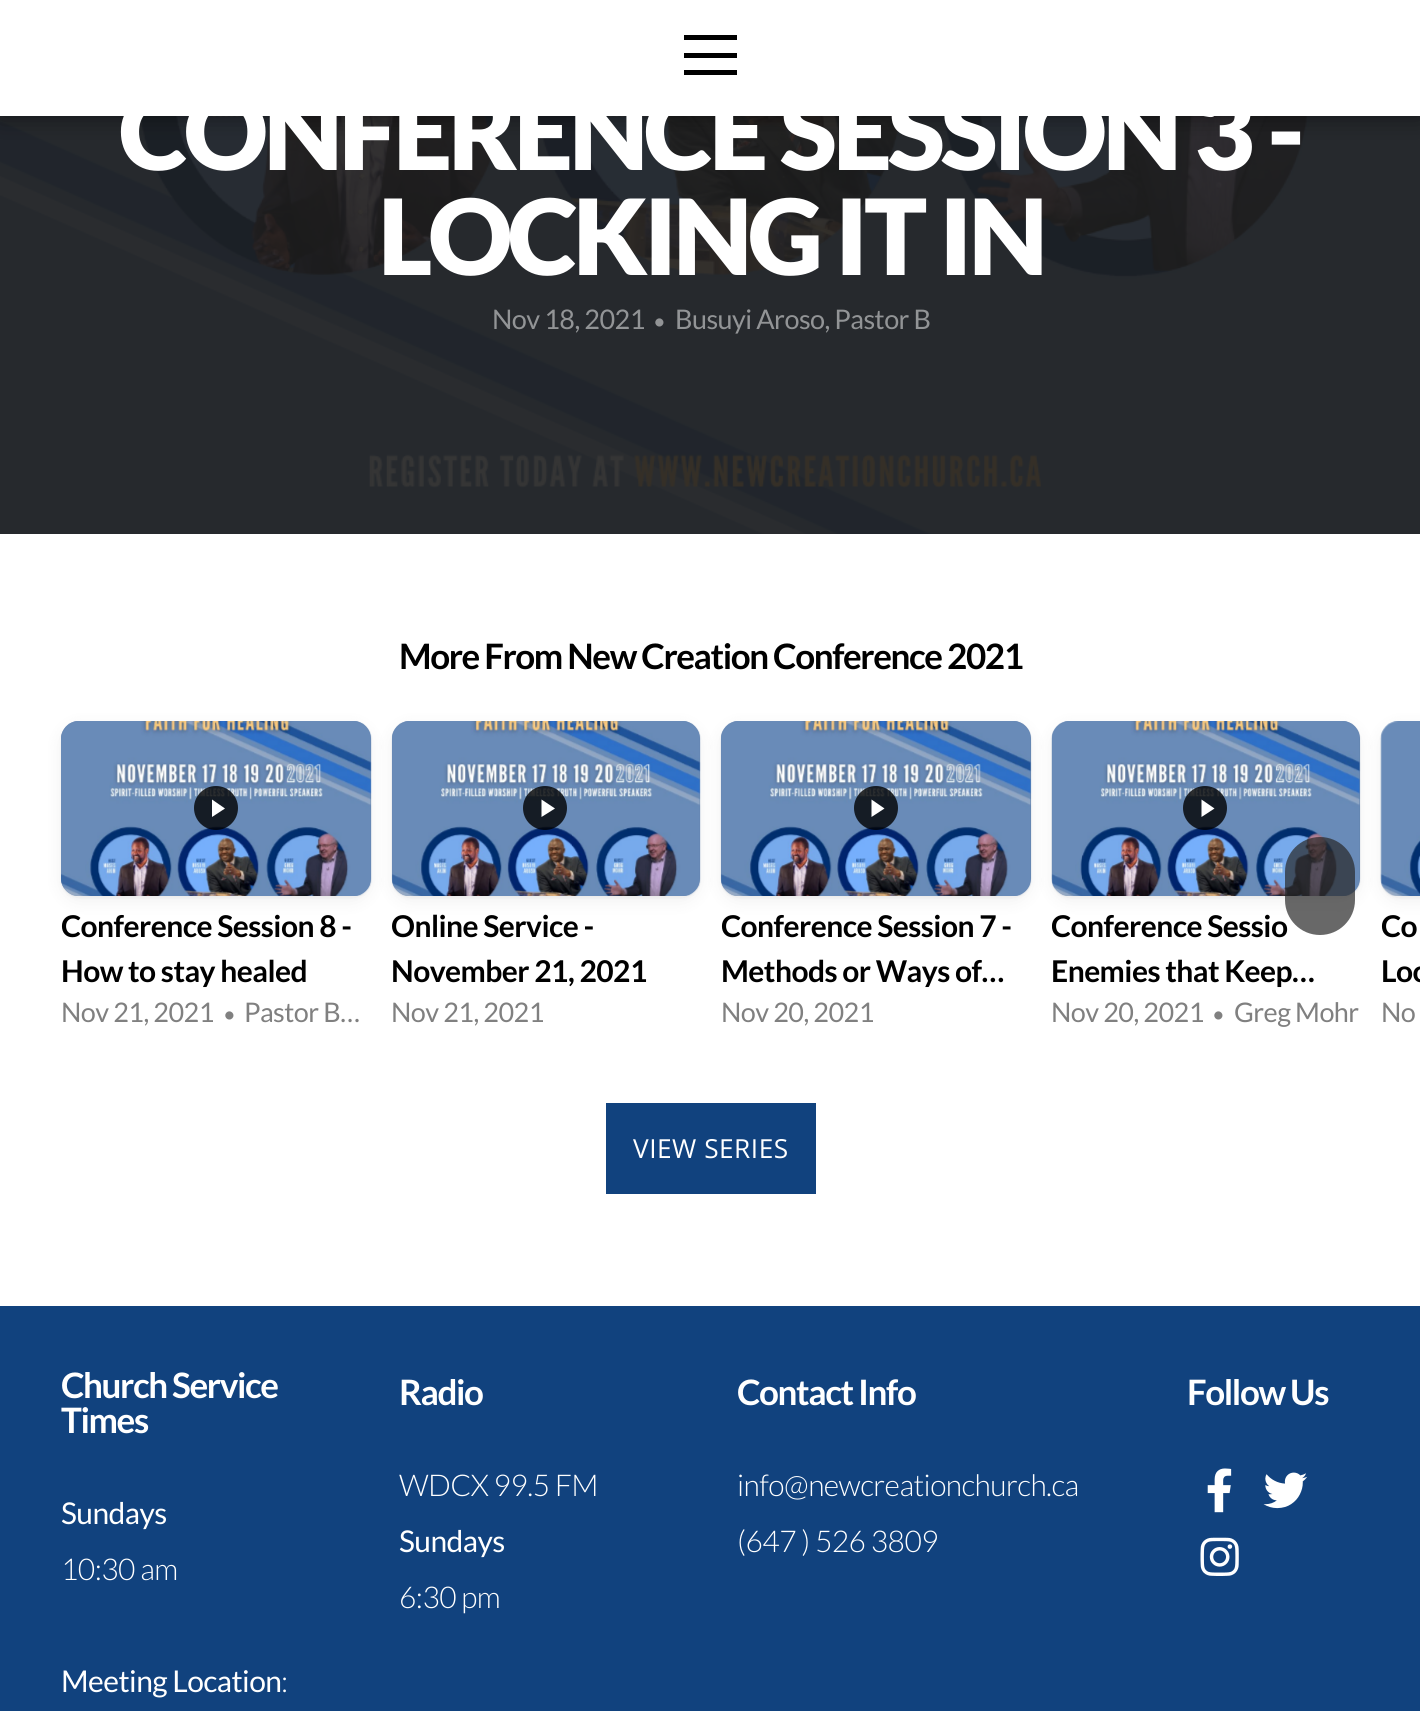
#include <cairo.h>
#include <math.h>
#include <stddef.h>

static cairo_t *c;
static void C(unsigned color){cairo_set_source_rgb(c, (color >> 16) / 255.0, (color >> 8 & 255) / 255.0, (color & 255) / 255.0);}
static void F(const char *family, double size, int italic, int bold){cairo_select_font_face(c, family, italic ? CAIRO_FONT_SLANT_ITALIC : CAIRO_FONT_SLANT_NORMAL,bold ? CAIRO_FONT_WEIGHT_BOLD : CAIRO_FONT_WEIGHT_NORMAL);cairo_set_font_size(c, size);}
static void L(double x, double y, const char *s, double letter, double word){cairo_move_to(c, x, y);while (*s) {char ch[5] = {0};int n = 0;do ch[n++] = *s++; while ((*s & 0xC0) == 0x80);cairo_show_text(c, ch);cairo_rel_move_to(c, letter + word * (*ch == ' '), 0);}}
static void R(double x, double y, double w, double h){cairo_rectangle(c, x, y, w, h);cairo_fill(c);}
static void Q(double x, double y, double w, double h, double r){cairo_new_sub_path(c);cairo_arc(c, x + w - r, y + h - r, r, 0, M_PI / 2);cairo_arc(c, x + r, y + h - r, r, M_PI / 2, M_PI);cairo_arc(c, x + r, y + r, r, M_PI, 1.5 * M_PI);cairo_arc(c, x + w - r, y + r, r, 1.5 * M_PI, 2 * M_PI);cairo_close_path(c);}
static void S(double x, double y, double w, double h, double r, double blur, double alpha){cairo_push_group_with_content(c, CAIRO_CONTENT_ALPHA);cairo_set_operator(c, CAIRO_OPERATOR_SOURCE);for (int i = 15; i >= -15 && fmin(w, h) + blur * i / 3 > 0; i -= 2) {double e = blur * i / 6;cairo_set_source_rgba(c, 0, 0, 0, alpha * erfc((i - 1) / 8.5) / 2);Q(x - e, y - e, w + 2 * e, h + 2 * e, fmax(0, fmin(r + e + blur * .6, fmin(w, h) / 2 + e)));cairo_fill(c);}cairo_pattern_t *soft = cairo_pop_group(c);cairo_mask(c, soft);cairo_pattern_destroy(soft);}
static void I(const char *path, double x, double y, double w, double h){cairo_surface_t *image = cairo_image_surface_create_from_png(path);cairo_save(c);cairo_set_source_surface(c, image, x, y);cairo_rectangle(c, x, y, w, h);cairo_fill(c);cairo_restore(c);cairo_surface_destroy(image);}
int main(void) {
cairo_surface_t *surface = cairo_image_surface_create(CAIRO_FORMAT_RGB24, 1420, 1711);
c = cairo_create(surface);
cairo_font_options_t *options = cairo_font_options_create();
cairo_font_options_set_hint_metrics(options, CAIRO_HINT_METRICS_OFF);
cairo_font_options_set_hint_style(options, CAIRO_HINT_STYLE_NONE);
cairo_set_font_options(c, options);
cairo_set_miter_limit(c, 4);
C(0xffffff);
cairo_paint(c);
I("1.png",0,116,1420,418);
C(0x000000);
S(0,0,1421,116,0,13,.5);
C(0xffffff);
R(0,0,1420,116);
C(0x000000);
R(684,35,53,5);
R(684,53,53,5);
R(684,70,53,5);
F("Lato Black",105,0,0);
C(0xffffff);
L(119,170,"CONFERENCE SESSION 3 -",-4.2,0);
L(378,275,"LOCKING IT IN",-4.2,0);
F("Lato",27,0,0);
C(0x929496);
L(492,329,"Nov 18, 2021",-.55,0);
F("Lato",22,0,0);
L(653,329,"•",-.55,0);
F("Lato",27,0,0);
L(675,329,"Busuyi Aroso, Pastor B",-.55,0);
F("Lato",35,0,1);
C(0x000000);
L(399,669,"More From New Creation Conference 2021",-1.4,0);
C(0x000000);
S(1052,723,308,175,18,2,.04);
S(61,723,310,175,18,2,.04);
S(61,726,310,175,18,9,.06);
C(0x6483ae);
Q(61,721,310,175,18);
cairo_fill(c);
I("2.png",61,721,311,175);
C(0x000000);
S(392,726,308,175,18,9,.06);
S(721,723,310,175,18,2,.04);
S(392,723,308,175,18,2,.04);
C(0x6483ae);
Q(392,721,308,175,18);
cairo_fill(c);
I("3.png",391,721,310,175);
C(0x000000);
S(721,726,310,175,18,9,.06);
C(0x6483ae);
Q(721,721,310,175,18);
cairo_fill(c);
I("4.png",720,721,312,175);
C(0x000000);
S(1052,726,308,175,18,9,.06);
C(0x6483ae);
Q(1052,721,308,175,18);
cairo_fill(c);
I("5.png",1051,721,310,175);
cairo_save(c);
cairo_rectangle(c,1052,905,308,89);
cairo_clip(c);
F("Lato",30,0,1);
C(0x000000);
L(1051,937,"Conference Sessio",-.55,0);
cairo_restore(c);
C(0x000000);
S(1381,726,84,175,18,9,.06);
cairo_set_source_rgba(c,0.157,0.157,0.157,0.7);
Q(1285,837,70,98,35);
cairo_fill(c);
cairo_set_source_rgba(c,0,0,0,0.8);
cairo_arc(c,216,808,22,0,2 * M_PI);
cairo_fill(c);
C(0xffffff);
cairo_new_path(c);
cairo_move_to(c,212,817);
cairo_line_to(c,212,799.5);
cairo_line_to(c,225,808.5);
cairo_close_path(c);
cairo_fill(c);
F("Lato",30,0,1);
C(0x000000);
L(61,937,"Conference Session 8 -",-.55,0);
L(61,982,"How to stay healed",-.55,0);
F("Lato",27,0,0);
C(0x808080);
L(61,1022,"Nov 21, 2021",-.55,0);
F("Lato",22,0,0);
L(223,1022,"•",-.55,0);
F("Lato",27,0,0);
L(244,1022,"Pastor B…",-.55,0);
cairo_set_source_rgba(c,0,0,0,0.8);
cairo_new_path(c);
cairo_arc(c,545,808,22,0,2 * M_PI);
cairo_fill(c);
C(0xffffff);
cairo_new_path(c);
cairo_move_to(c,541.5,817);
cairo_line_to(c,541.5,799.5);
cairo_line_to(c,555,808.5);
cairo_close_path(c);
cairo_fill(c);
F("Lato",30,0,1);
C(0x000000);
L(391,937,"Online Service -",-.55,0);
L(391,982,"November 21, 2021",-.55,0);
F("Lato",27,0,0);
C(0x808080);
L(391,1022,"Nov 21, 2021",-.55,0);
cairo_set_source_rgba(c,0,0,0,0.8);
cairo_new_path(c);
cairo_arc(c,876,808,22,0,2 * M_PI);
cairo_fill(c);
C(0xffffff);
cairo_new_path(c);
cairo_move_to(c,871.5,817);
cairo_line_to(c,871.5,799.5);
cairo_line_to(c,884.5,808.5);
cairo_close_path(c);
cairo_fill(c);
F("Lato",30,0,1);
C(0x000000);
L(721,937,"Conference Session 7 -",-.55,0);
L(721,982,"Methods or Ways of…",-.55,0);
F("Lato",27,0,0);
C(0x808080);
L(721,1022,"Nov 20, 2021",-.55,0);
cairo_set_source_rgba(c,0,0,0,0.8);
cairo_new_path(c);
cairo_arc(c,1205,808,22,0,2 * M_PI);
cairo_fill(c);
C(0xffffff);
cairo_new_path(c);
cairo_move_to(c,1201.5,817);
cairo_line_to(c,1201.5,799.5);
cairo_line_to(c,1214.5,808.5);
cairo_close_path(c);
cairo_fill(c);
F("Lato",30,0,1);
C(0x000000);
L(1051,982,"Enemies that Keep…",-.55,0);
F("Lato",27,0,0);
C(0x808080);
L(1051,1022,"Nov 20, 2021",-.55,0);
F("Lato",22,0,0);
L(1212,1022,"•",-.55,0);
F("Lato",27,0,0);
L(1234,1022,"Greg Mohr",-.55,0);
C(0x000000);
S(1381,723,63,175,18,2,.04);
I("6.png",1380,721,40,175);
F("Lato",30,0,1);
C(0x000000);
L(1381,937,"Co",-.55,0);
L(1381,982,"Loc",-.55,0);
F("Lato",27,0,0);
C(0x808080);
L(1381,1022,"No",-.55,0);
C(0x11427e);
R(606,1103,210,91);
F("Open Sans",26.25,0,0);
C(0xffffff);
L(633,1158,"VIEW SERIES",.5,0);
C(0x11427e);
R(0,1306,1420,405);
F("Lato",35,0,1);
C(0xffffff);
L(61,1398,"Church Service",-1.4,0);
L(61,1433,"Times",-1.4,0);
F("Lato",30,0,0);
L(61,1524,"Sundays",-.55,0);
F("Lato Light",30,0,0);
L(61,1580,"10:30 am",-.55,0);
F("Lato",30,0,0);
L(61,1692,"Meeting Location",-.55,0);
F("Lato Light",30,0,0);
L(281,1692,":",-.55,0);
F("Lato",35,0,1);
L(399,1405,"Radio",-1.4,0);
F("Lato Light",30,0,0);
L(399,1496,"WDCX 99.5 FM",-.55,0);
F("Lato",30,0,0);
L(399,1552,"Sundays",-.55,0);
F("Lato Light",30,0,0);
L(399,1608,"6:30 pm",-.55,0);
F("Lato",35,0,1);
L(737,1405,"Contact Info",-1.4,0);
F("Lato Light",30,0,0);
L(737,1496,"info@newcreationchurch.ca",-.55,0);
L(737,1552,"(647 ) 526 3809",-.55,0);
F("Lato",35,0,1);
L(1187,1405,"Follow Us",-1.4,0);
I("7.png",1207,1468,25,45);
I("8.png",1263,1472,45,37);
I("9.png",1200,1537,39,39);
cairo_surface_write_to_png(surface, "o.png");
cairo_font_options_destroy(options);
cairo_destroy(c);
cairo_surface_destroy(surface);
return 0;
}
